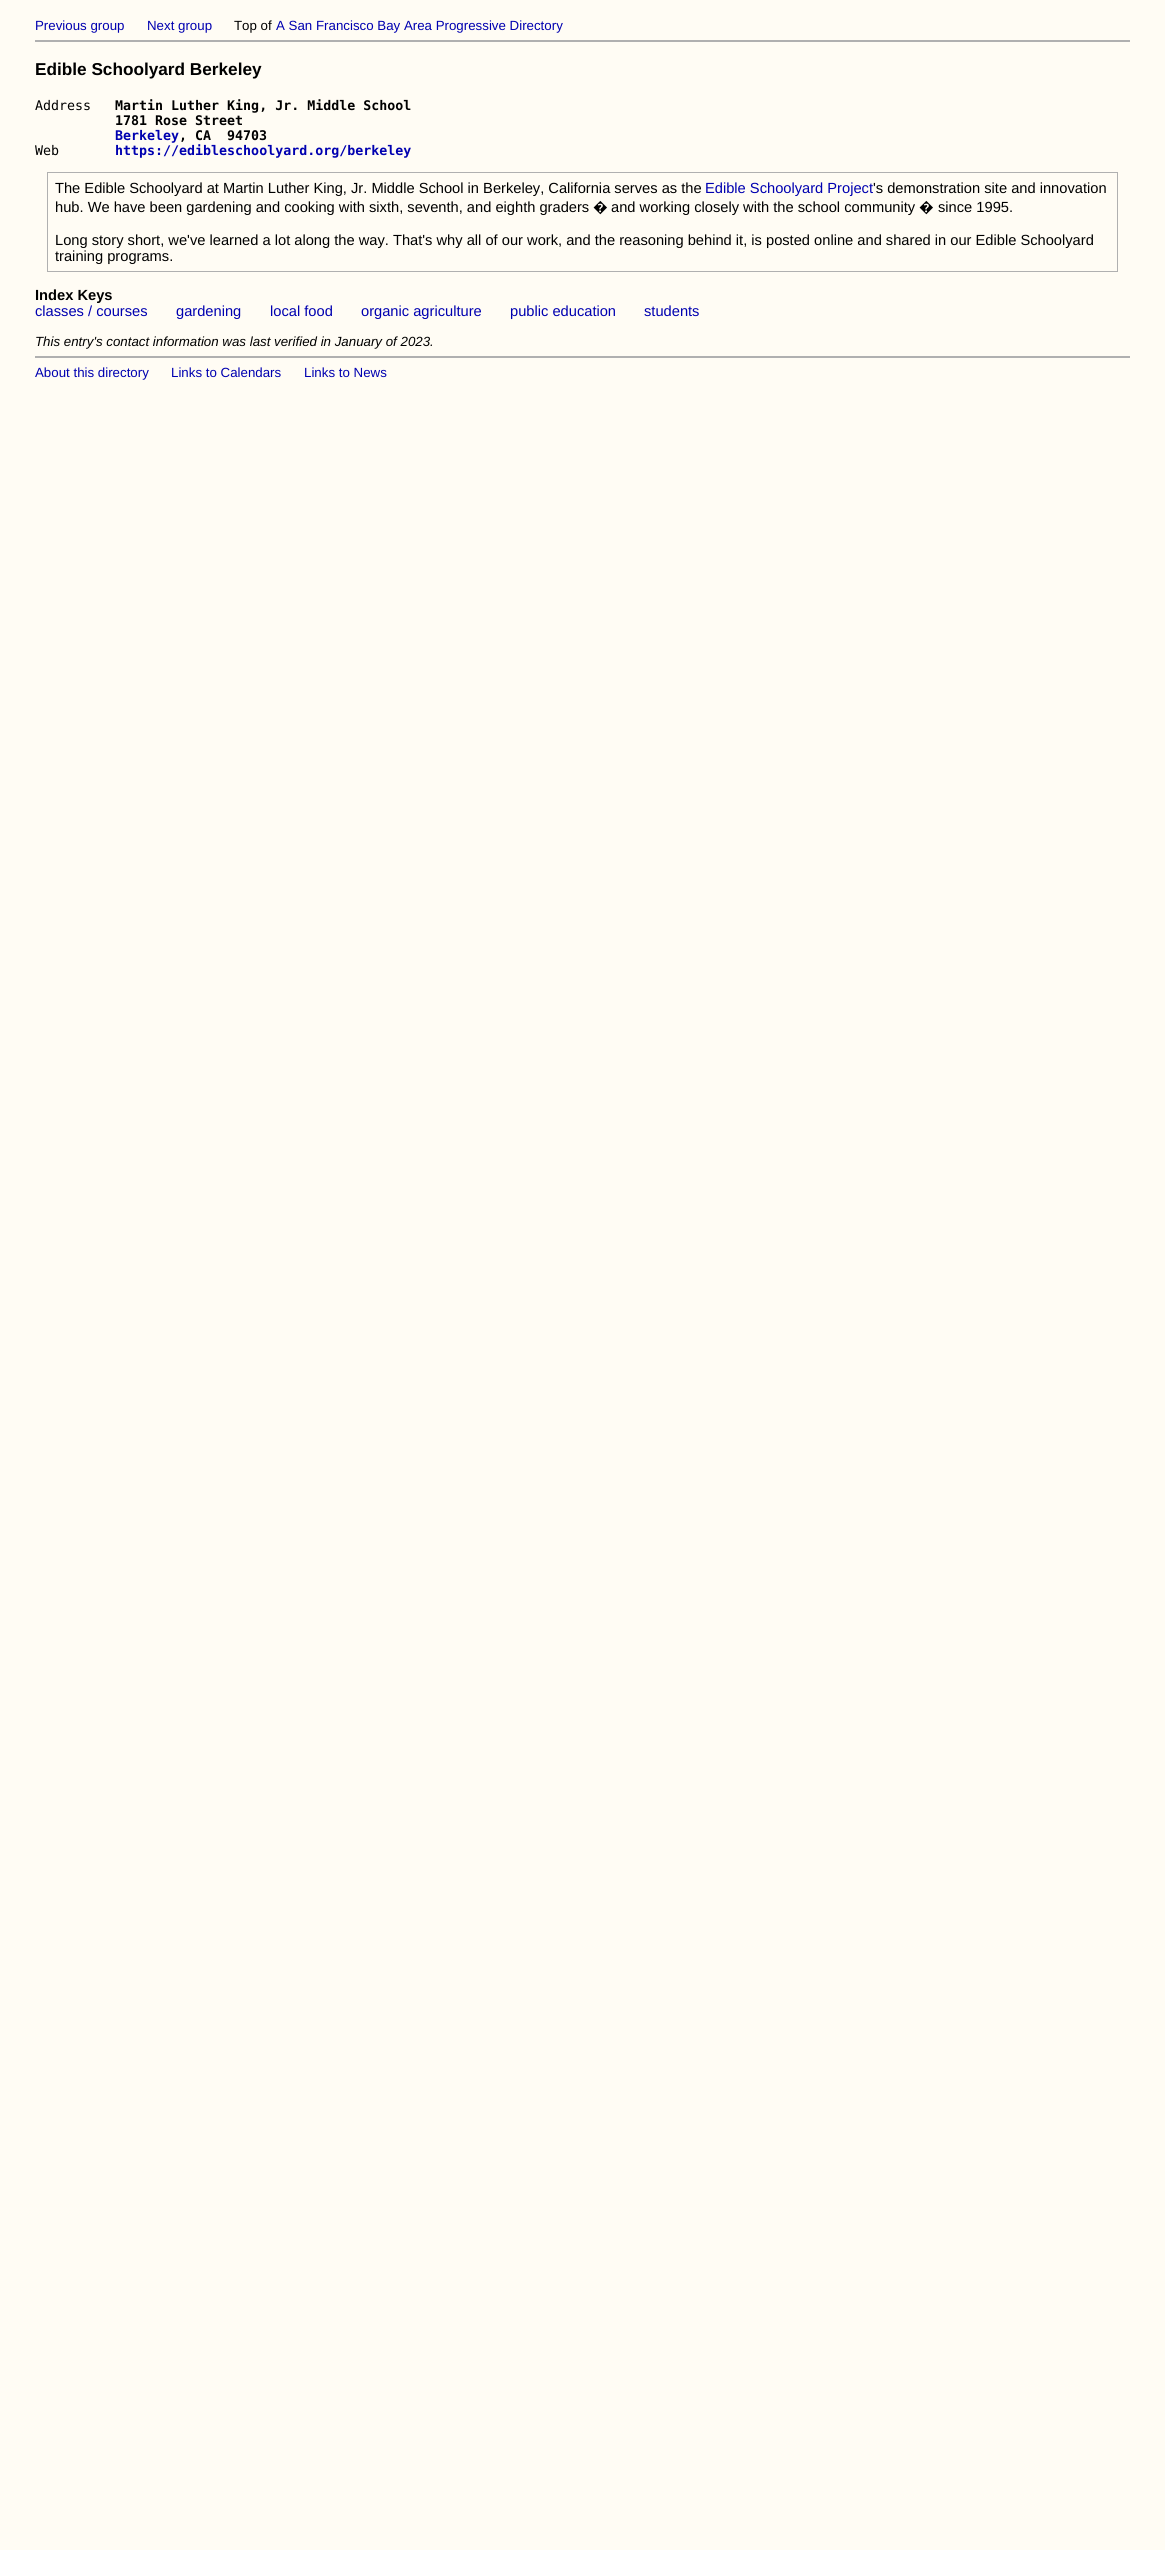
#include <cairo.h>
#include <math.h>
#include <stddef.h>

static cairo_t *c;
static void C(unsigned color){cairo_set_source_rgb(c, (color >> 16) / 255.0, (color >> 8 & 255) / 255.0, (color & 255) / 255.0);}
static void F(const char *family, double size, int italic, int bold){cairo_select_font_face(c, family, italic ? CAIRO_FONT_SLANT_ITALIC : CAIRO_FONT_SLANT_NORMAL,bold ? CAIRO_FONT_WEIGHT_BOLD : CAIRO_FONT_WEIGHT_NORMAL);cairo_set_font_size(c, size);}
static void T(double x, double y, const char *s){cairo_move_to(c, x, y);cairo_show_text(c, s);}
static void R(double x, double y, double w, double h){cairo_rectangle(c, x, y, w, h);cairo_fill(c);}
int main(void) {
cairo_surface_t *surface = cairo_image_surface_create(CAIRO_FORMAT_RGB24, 1165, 2550);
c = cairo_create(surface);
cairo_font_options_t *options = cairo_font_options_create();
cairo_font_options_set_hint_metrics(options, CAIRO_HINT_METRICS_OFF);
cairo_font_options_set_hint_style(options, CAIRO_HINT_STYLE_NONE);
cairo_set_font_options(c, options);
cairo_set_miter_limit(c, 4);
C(0xfffcf4);
cairo_paint(c);
F("Liberation Sans",13.3,0,0);
C(0x0000b0);
T(35,30,"Previous group");
T(147,30,"Next group");
C(0x000000);
T(234,30,"Top of");
C(0x0000b0);
T(276,30,"A San Francisco Bay Area Progressive Directory");
C(0xb0b0b0);
R(35,40,1095,2);
F("Liberation Sans",17.2,0,1);
C(0x000000);
T(35,75,"Edible Schoolyard Berkeley");
F("DejaVu Sans Mono",13.3,0,0);
T(35,110,"Address");
F("DejaVu Sans Mono",13.3,0,1);
T(115,110,"Martin Luther King, Jr. Middle School");
T(115,125,"1781 Rose Street");
C(0x0000b0);
T(115,140,"Berkeley");
C(0x000000);
T(179,140,", CA  94703");
F("DejaVu Sans Mono",13.3,0,0);
T(35,155,"Web");
F("DejaVu Sans Mono",13.3,0,1);
C(0x0000b0);
T(115,155,"https://edibleschoolyard.org/berkeley");
cairo_rectangle(c,47.5,172.5,1070,99);
C(0xb0b0b0);
cairo_set_line_width(c,1);
cairo_stroke(c);
F("Liberation Sans",14.67,0,0);
C(0x000000);
T(55,193,"The Edible Schoolyard at Martin Luther King, Jr. Middle School in Berkeley, California serves as the");
C(0x0000b0);
T(705,193,"Edible Schoolyard Project");
C(0x000000);
T(873,193,"'s demonstration site and innovation");
T(55,212,"hub. We have been gardening and cooking with sixth, seventh, and eighth graders");
F("Noto Sans",14.67,0,0);
T(593,212,"�");
F("Liberation Sans",14.67,0,0);
T(611,212,"and working closely with the school community");
F("Noto Sans",14.67,0,0);
T(919,212,"�");
F("Liberation Sans",14.67,0,0);
T(938,212,"since 1995.");
T(55,245,"Long story short, we've learned a lot along the way. That's why all of our work, and the reasoning behind it, is posted online and shared in our Edible Schoolyard");
T(55,261,"training programs.");
F("Liberation Sans",14.67,0,1);
T(35,300,"Index Keys");
F("Liberation Sans",14.67,0,0);
C(0x0000b0);
T(35,316,"classes / courses");
T(176,316,"gardening");
T(270,316,"local food");
T(361,316,"organic agriculture");
T(510,316,"public education");
T(644,316,"students");
F("Liberation Sans",13.3,1,0);
C(0x000000);
T(35,346,"This entry's contact information was last verified in January of 2023.");
C(0xb0b0b0);
R(35,356,1095,2);
F("Liberation Sans",13.3,0,0);
C(0x0000b0);
T(35,377,"About this directory");
T(171,377,"Links to Calendars");
T(304,377,"Links to News");
cairo_surface_write_to_png(surface, "o.png");
cairo_font_options_destroy(options);
cairo_destroy(c);
cairo_surface_destroy(surface);
return 0;
}
